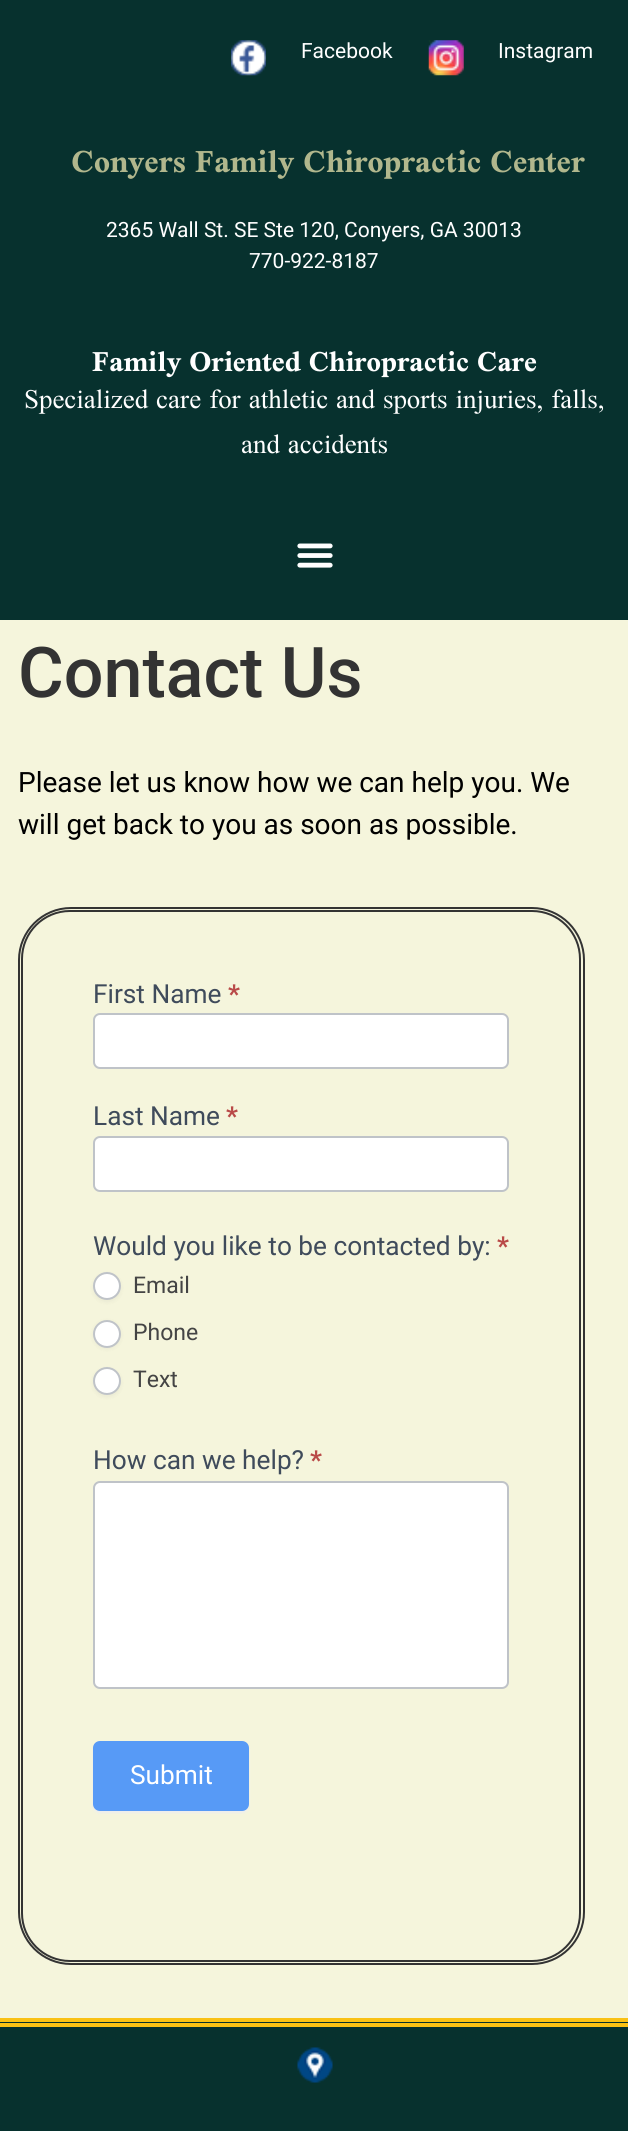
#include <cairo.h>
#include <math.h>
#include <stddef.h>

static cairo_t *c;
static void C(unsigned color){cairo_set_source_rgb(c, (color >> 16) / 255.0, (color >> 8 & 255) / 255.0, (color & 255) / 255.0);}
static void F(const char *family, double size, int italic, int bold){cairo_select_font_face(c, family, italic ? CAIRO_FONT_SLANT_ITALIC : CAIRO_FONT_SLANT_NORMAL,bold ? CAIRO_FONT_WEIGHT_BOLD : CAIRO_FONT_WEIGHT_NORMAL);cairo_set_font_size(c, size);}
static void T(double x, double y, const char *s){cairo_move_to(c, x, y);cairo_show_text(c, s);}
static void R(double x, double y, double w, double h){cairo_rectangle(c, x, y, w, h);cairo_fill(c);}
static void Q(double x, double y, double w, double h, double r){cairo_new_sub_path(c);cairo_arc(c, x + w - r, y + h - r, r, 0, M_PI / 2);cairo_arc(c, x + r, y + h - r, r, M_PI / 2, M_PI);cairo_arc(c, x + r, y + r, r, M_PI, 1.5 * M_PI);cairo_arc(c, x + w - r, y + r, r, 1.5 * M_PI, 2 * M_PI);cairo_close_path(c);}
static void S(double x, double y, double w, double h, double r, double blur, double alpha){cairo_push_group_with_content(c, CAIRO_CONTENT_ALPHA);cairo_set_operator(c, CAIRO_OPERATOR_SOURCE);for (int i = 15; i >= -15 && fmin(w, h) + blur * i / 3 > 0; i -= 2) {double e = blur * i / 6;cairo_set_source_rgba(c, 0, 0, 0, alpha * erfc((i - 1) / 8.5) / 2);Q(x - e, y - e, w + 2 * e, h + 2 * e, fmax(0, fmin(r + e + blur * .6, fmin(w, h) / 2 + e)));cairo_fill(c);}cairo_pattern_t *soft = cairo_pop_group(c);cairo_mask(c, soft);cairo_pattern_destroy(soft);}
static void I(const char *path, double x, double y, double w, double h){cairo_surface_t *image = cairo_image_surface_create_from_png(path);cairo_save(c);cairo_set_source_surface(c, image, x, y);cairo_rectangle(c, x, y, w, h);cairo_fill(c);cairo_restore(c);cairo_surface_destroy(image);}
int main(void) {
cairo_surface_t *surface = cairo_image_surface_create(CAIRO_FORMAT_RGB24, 628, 2131);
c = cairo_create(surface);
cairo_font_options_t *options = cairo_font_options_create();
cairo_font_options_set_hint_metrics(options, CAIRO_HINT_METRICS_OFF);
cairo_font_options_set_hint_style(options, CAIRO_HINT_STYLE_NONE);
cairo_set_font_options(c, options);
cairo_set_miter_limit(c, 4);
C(0xf5f5dc);
cairo_paint(c);
C(0x07312e);
R(0,0,628,620);
I("1.png",231,40,35,36);
F("Roboto",21,0,0);
C(0xffffff);
T(301,58,"Facebook");
I("2.png",428,40,36,36);
T(498,58,"Instagram");
F("Scheherazade New",35,0,1);
C(0xb1b78d);
T(71,172,"Conyers Family Chiropractic Center");
F("Roboto",21,0,0);
C(0xffffff);
T(106,237,"2365 Wall St. SE Ste 120, Conyers, GA 30013");
T(249,268,"770-922-8187");
F("Scheherazade New",31.5,0,1);
T(92,371,"Family Oriented Chiropractic Care");
F("Scheherazade New",29.75,0,0);
T(24,408,"Specialized care for athletic and sports injuries, falls,");
T(241,453,"and accidents");
I("3.png",297,543,36,25);
F("Roboto Medium",70,0,0);
C(0x333333);
T(18,697,"Contact Us");
F("Roboto",28,0,0);
C(0x000000);
T(18,792,"Please let us know how we can help you. We");
T(18,834,"will get back to you as soon as possible.");
Q(19,908,565,1056,52);
C(0x333333);
cairo_stroke(c);
Q(22,911,558,1050,48);
cairo_stroke(c);
F("Roboto",26.25,0,0);
C(0x3f4b5b);
T(93,1003,"First Name");
F("Roboto",26.25,0,1);
C(0xb94a48);
T(228,1003,"*");
C(0xffffff);
Q(94,1014,414,54,6);
cairo_fill_preserve(c);
C(0xbfc3c8);
cairo_stroke(c);
F("Roboto",26.25,0,0);
C(0x3f4b5b);
T(93,1125,"Last Name");
F("Roboto",26.25,0,1);
C(0xb94a48);
T(226,1125,"*");
C(0xffffff);
Q(94,1137,414,54,6);
cairo_fill_preserve(c);
C(0xbfc3c8);
cairo_stroke(c);
F("Roboto",26.25,0,0);
C(0x3f4b5b);
T(93,1255,"Would you like to be contacted by:");
F("Roboto",26.25,0,1);
C(0xb94a48);
T(497,1255,"*");
C(0x121217);
S(93,1274,28,28,14,2,.05);
C(0xffffff);
cairo_arc(c,107,1286,13,0,2 * M_PI);
cairo_fill_preserve(c);
C(0xbfc3c8);
cairo_stroke(c);
F("Roboto",23,0,0);
C(0x444444);
T(133,1293,"Email");
C(0x121217);
S(93,1321,28,28,14,2,.05);
C(0xffffff);
cairo_arc(c,107,1334,13,0,2 * M_PI);
cairo_fill_preserve(c);
C(0xbfc3c8);
cairo_stroke(c);
C(0x444444);
T(133,1340,"Phone");
C(0x121217);
S(93,1369,28,28,14,2,.05);
C(0xffffff);
cairo_arc(c,107,1381,13,0,2 * M_PI);
cairo_fill_preserve(c);
C(0xbfc3c8);
cairo_stroke(c);
C(0x444444);
T(133,1387,"Text");
F("Roboto",26.25,0,0);
C(0x3f4b5b);
T(93,1469,"How can we help?");
F("Roboto",26.25,0,1);
C(0xb94a48);
T(310,1469,"*");
C(0xffffff);
Q(94,1482,414,206,6);
cairo_fill_preserve(c);
C(0xbfc3c8);
cairo_stroke(c);
C(0xeeeeee);
S(93,1743,156,70,7,1,1);
C(0x579af6);
Q(94,1742,154,68,6);
cairo_fill_preserve(c);
cairo_stroke(c);
F("Roboto",26.25,0,0);
C(0xffffff);
T(130,1784,"Submit");
C(0x07312e);
R(0,2022,628,109);
C(0xfac114);
R(0,2018,628,4);
R(0,2023,628,4);
I("4.png",297,2047,36,36);
cairo_surface_write_to_png(surface, "o.png");
cairo_font_options_destroy(options);
cairo_destroy(c);
cairo_surface_destroy(surface);
return 0;
}
